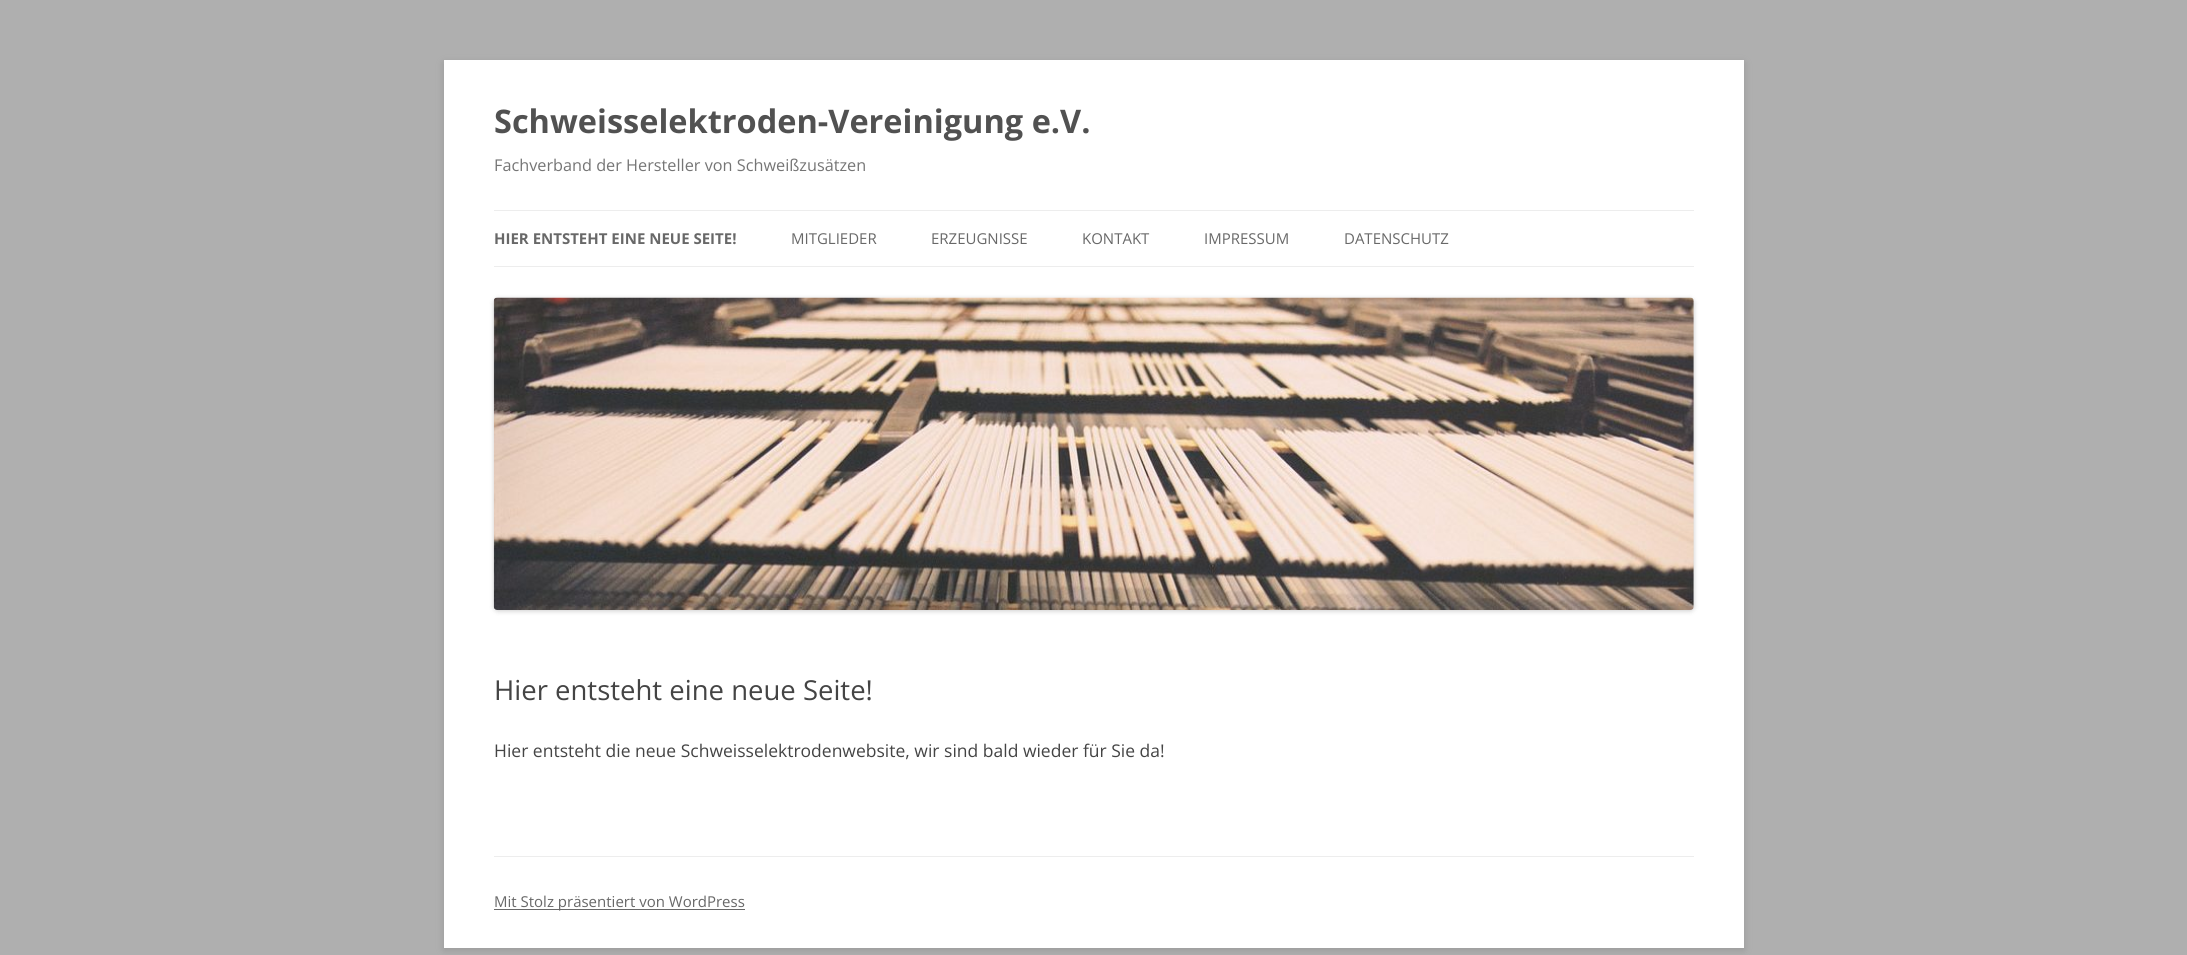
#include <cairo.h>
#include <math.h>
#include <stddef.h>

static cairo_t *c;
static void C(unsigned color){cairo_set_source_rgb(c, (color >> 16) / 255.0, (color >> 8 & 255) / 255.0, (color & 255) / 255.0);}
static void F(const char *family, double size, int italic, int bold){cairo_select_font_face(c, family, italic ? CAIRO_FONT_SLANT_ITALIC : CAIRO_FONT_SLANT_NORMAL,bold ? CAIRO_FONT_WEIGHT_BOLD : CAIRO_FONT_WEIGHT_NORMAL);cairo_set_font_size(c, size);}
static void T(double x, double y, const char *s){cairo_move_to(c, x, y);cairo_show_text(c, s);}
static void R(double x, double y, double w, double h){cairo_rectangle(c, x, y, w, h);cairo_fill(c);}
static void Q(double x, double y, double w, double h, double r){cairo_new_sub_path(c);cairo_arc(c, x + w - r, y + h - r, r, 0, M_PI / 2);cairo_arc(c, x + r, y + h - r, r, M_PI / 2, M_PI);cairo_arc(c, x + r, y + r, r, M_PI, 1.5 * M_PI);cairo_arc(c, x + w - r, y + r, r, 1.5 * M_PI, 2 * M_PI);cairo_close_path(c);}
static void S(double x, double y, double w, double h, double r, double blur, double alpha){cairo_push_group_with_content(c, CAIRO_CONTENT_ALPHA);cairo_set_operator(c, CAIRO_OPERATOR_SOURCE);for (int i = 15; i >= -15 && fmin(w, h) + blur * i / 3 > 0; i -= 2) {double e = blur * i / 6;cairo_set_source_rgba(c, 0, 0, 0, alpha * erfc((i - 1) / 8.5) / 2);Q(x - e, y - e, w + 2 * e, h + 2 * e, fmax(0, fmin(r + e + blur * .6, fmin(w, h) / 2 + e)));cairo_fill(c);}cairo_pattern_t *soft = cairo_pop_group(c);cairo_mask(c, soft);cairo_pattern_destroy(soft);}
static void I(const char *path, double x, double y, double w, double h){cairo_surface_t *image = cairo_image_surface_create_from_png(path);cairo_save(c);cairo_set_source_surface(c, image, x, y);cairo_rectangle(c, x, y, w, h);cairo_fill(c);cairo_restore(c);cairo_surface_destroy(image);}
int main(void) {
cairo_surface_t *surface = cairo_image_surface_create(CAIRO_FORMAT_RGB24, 2187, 955);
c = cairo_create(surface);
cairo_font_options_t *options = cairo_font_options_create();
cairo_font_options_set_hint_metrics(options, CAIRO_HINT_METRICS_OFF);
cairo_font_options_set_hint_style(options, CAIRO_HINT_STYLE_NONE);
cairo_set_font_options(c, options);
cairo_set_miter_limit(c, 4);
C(0xafafaf);
cairo_paint(c);
C(0x646464);
S(444,63,1300,887,0,4,.3);
C(0xffffff);
R(444,60,1300,888);
F("Open Sans",32.5,0,1);
C(0x515151);
T(494,133,"Schweisselektroden-Vereinigung e.V.");
F("Open Sans",16.25,0,0);
C(0x757575);
T(494,171,"Fachverband der Hersteller von Schweißzusätzen");
C(0xededed);
R(494,210,1200,1);
R(494,266,1200,1);
F("Open Sans",15,0,1);
C(0x686868);
T(494,244,"HIER ENTSTEHT EINE NEUE SEITE!");
F("Open Sans",15,0,0);
T(791,244,"MITGLIEDER");
T(931,244,"ERZEUGNISSE");
T(1082,244,"KONTAKT");
T(1204,244,"IMPRESSUM");
T(1344,244,"DATENSCHUTZ");
C(0x000000);
S(494,299,1200,312,4,2.5,.2);
I("1.png",493,297,1201,313);
F("Open Sans",27.5,0,0);
C(0x444444);
T(494,700,"Hier entsteht eine neue Seite!");
F("Open Sans",17.5,0,0);
T(494,757,"Hier entsteht die neue Schweisselektrodenwebsite, wir sind bald wieder für Sie da!");
C(0xededed);
R(494,856,1200,1);
C(0x686868);
R(494,909,251,1);
F("Open Sans",15,0,0);
T(494,907,"Mit Stolz präsentiert von WordPress");
cairo_surface_write_to_png(surface, "o.png");
cairo_font_options_destroy(options);
cairo_destroy(c);
cairo_surface_destroy(surface);
return 0;
}
